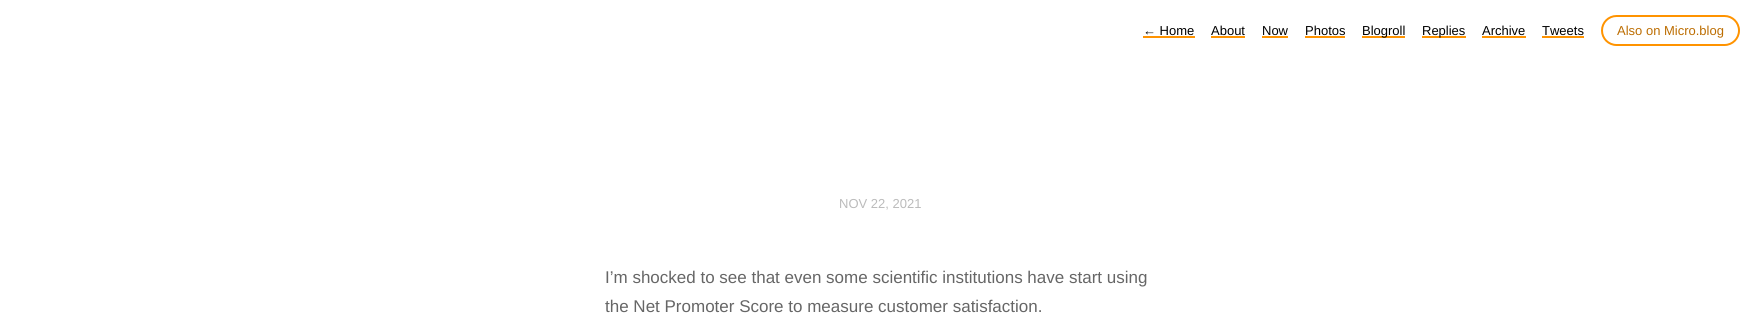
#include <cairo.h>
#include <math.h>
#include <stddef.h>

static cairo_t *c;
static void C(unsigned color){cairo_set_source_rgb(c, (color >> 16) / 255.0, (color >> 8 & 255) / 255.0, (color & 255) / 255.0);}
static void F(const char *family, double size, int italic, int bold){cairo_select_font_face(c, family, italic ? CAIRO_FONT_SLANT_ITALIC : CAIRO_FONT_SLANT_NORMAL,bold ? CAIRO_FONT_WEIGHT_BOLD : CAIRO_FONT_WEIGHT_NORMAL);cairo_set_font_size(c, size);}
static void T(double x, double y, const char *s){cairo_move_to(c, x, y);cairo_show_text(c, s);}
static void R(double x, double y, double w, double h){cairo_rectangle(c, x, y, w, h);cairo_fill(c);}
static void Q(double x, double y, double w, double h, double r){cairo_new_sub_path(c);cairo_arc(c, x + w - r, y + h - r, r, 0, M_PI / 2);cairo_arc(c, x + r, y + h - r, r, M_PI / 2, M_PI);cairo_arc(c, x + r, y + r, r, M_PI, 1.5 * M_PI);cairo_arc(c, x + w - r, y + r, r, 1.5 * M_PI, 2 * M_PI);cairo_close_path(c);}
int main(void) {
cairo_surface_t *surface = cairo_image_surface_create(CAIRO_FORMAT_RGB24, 1760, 327);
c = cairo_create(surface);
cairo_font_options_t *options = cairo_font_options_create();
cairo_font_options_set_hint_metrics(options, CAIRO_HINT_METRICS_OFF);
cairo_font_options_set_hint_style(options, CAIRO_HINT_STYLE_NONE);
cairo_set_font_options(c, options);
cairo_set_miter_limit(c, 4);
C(0xffffff);
cairo_paint(c);
F("Liberation Sans",13,0,0);
C(0x000000);
T(1143,35,"← Home");
C(0xff9300);
R(1143,36,52,2);
C(0x000000);
T(1211,35,"About");
C(0xff9300);
R(1211,36,34,2);
C(0x000000);
T(1262,35,"Now");
C(0xff9300);
R(1262,36,26,2);
C(0x000000);
T(1305,35,"Photos");
C(0xff9300);
R(1305,36,40,2);
R(1362,36,43,2);
C(0x000000);
T(1362,35,"Blogroll");
C(0xff9300);
R(1422,36,44,2);
C(0x000000);
T(1422,35,"Replies");
T(1482,35,"Archive");
C(0xff9300);
R(1482,36,44,2);
C(0x000000);
T(1542,35,"Tweets");
C(0xff9300);
R(1542,36,42,2);
Q(1602,16,137,29,14.5);
cairo_stroke(c);
C(0xbc6d01);
T(1617,35,"Also on Micro.blog");
C(0xbbbbbb);
T(839,208,"NOV 22, 2021");
F("Liberation Sans",17,0,0);
C(0x666666);
T(605,283,"I’m shocked to see that even some scientific institutions have start using");
T(605,312,"the Net Promoter Score to measure customer satisfaction.");
cairo_surface_write_to_png(surface, "o.png");
cairo_font_options_destroy(options);
cairo_destroy(c);
cairo_surface_destroy(surface);
return 0;
}
